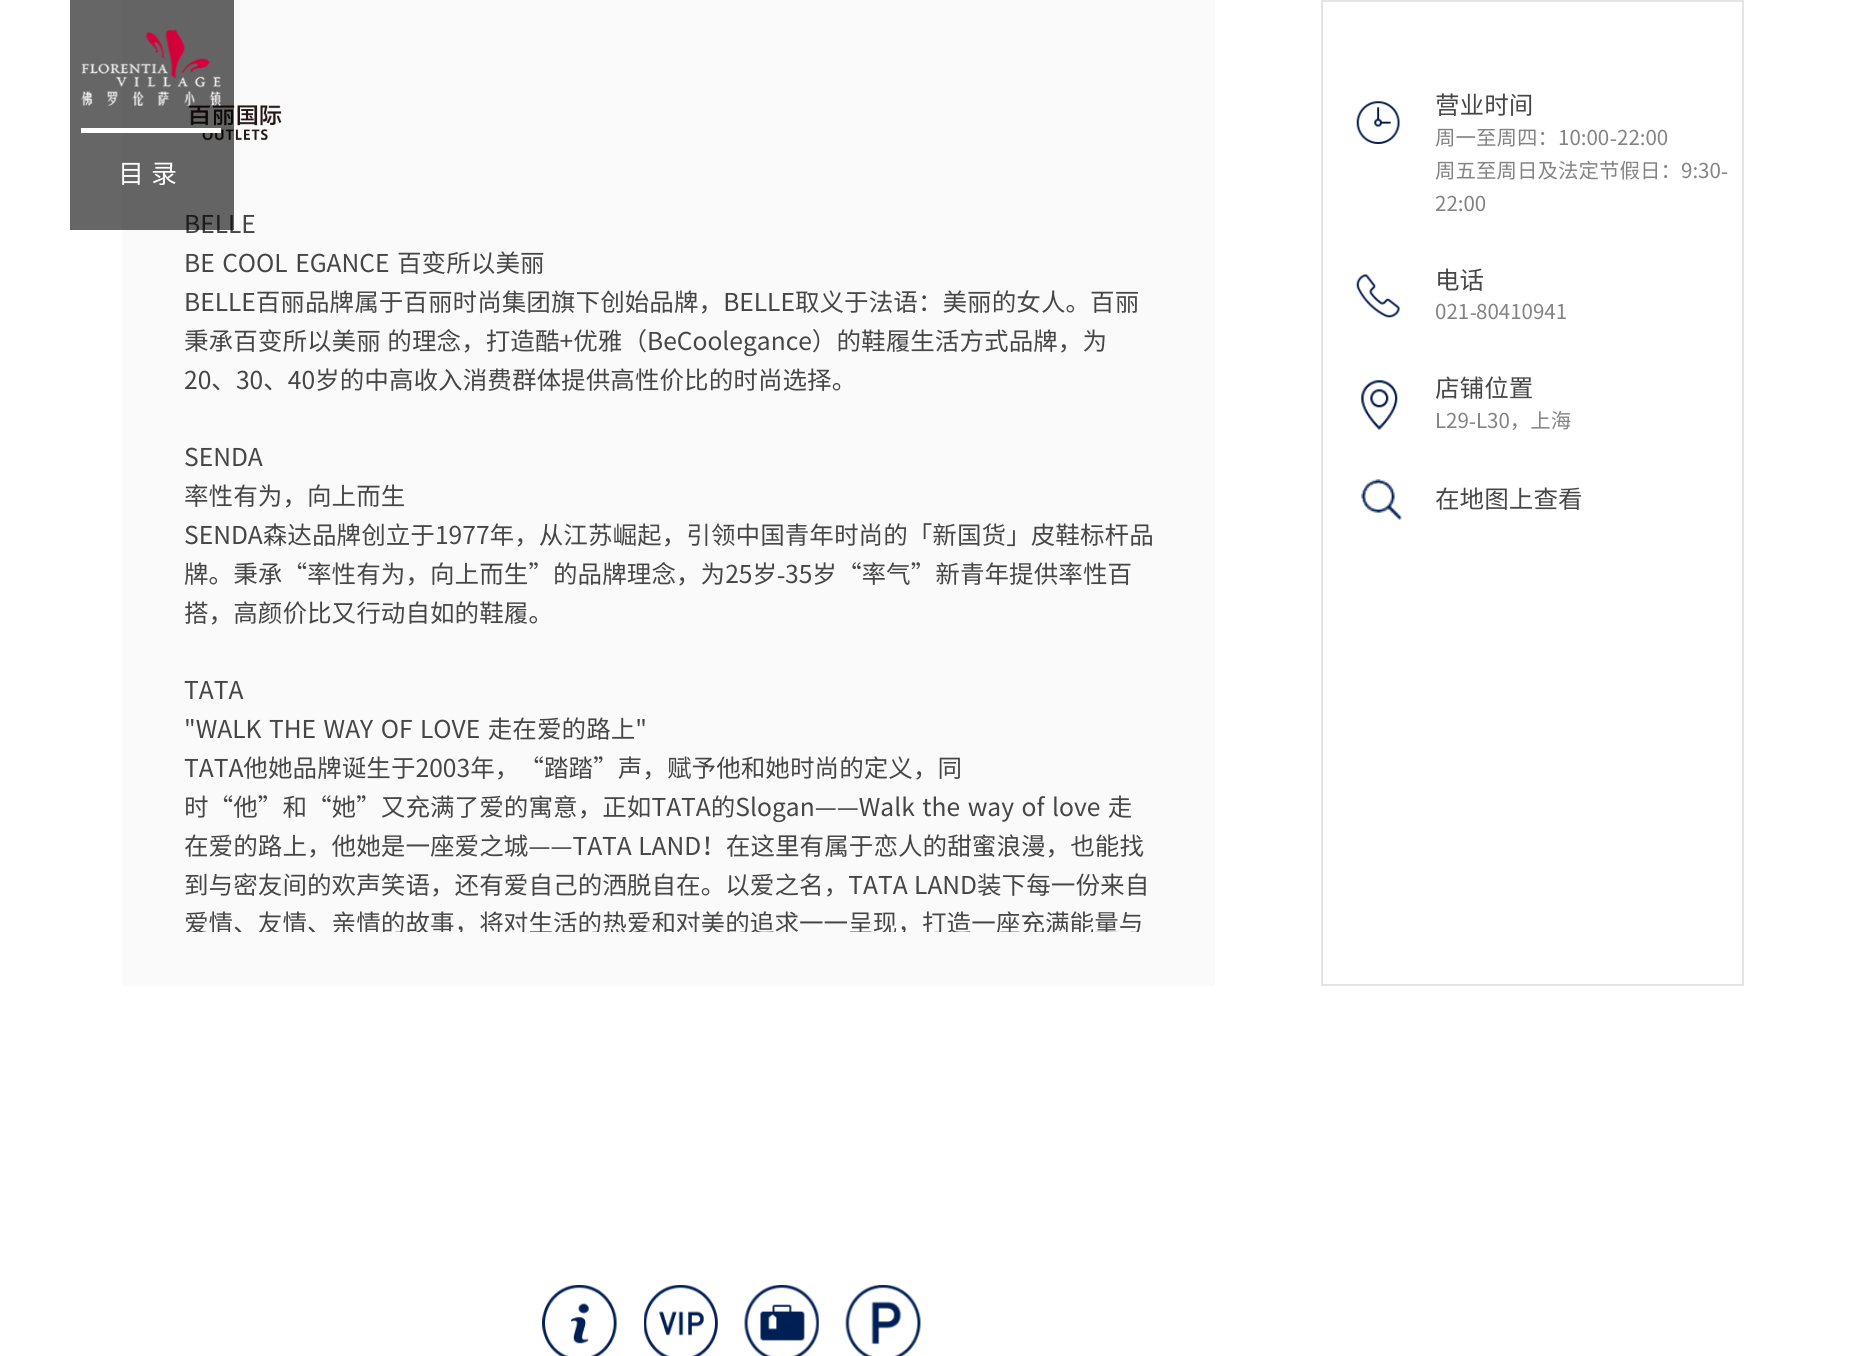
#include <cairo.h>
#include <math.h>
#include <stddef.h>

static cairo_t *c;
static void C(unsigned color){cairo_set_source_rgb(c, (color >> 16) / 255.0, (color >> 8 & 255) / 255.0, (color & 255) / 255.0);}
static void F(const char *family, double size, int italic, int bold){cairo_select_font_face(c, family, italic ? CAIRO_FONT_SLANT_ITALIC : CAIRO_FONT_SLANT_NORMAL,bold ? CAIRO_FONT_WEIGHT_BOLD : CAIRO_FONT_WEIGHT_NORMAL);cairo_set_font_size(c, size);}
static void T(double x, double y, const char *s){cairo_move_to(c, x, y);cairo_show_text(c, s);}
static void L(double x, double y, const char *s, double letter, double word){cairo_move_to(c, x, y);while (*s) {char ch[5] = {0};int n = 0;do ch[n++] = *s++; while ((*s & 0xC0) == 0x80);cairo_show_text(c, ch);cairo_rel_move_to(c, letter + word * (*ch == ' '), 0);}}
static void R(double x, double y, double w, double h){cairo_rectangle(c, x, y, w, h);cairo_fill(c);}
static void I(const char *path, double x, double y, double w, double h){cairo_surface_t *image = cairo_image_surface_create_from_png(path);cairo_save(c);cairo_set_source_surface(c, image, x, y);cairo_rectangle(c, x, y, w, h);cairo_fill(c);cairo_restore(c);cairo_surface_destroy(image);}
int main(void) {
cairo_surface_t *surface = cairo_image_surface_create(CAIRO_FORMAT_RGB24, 1864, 1356);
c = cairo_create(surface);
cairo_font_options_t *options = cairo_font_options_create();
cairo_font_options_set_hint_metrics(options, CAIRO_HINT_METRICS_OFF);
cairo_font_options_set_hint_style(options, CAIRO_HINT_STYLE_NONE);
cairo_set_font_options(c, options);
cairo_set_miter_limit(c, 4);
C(0xffffff);
cairo_paint(c);
C(0xfafafa);
R(122,0,1093,986);
I("2.png",188,105,94,36);
F("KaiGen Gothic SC",24.6,0,0);
C(0x464646);
T(184,233,"BELLE");
cairo_set_source_rgba(c,0,0,0,0.6);
R(70,0,164,230);
C(0xffffff);
R(81,128,140,5);
I("1.png",81,29,140,77);
F("KaiGen Gothic SC",26,0,0);
L(118,183,"目录",7,0);
F("KaiGen Gothic SC",24.6,0,0);
C(0x464646);
L(184,272,"BE COOL EGANCE 百变所以美丽",0,2);
T(184,311,"BELLE百丽品牌属于百丽时尚集团旗下创始品牌，BELLE取义于法语：美丽的女人。百丽");
L(184,350,"秉承百变所以美丽 的理念，打造酷+优雅（BeCoolegance）的鞋履生活方式品牌，为",0,1);
T(184,389,"20、30、40岁的中高收入消费群体提供高性价比的时尚选择。");
T(184,466,"SENDA");
T(184,505,"率性有为，向上而生");
T(184,544,"SENDA森达品牌创立于1977年，从江苏崛起，引领中国青年时尚的「新国货」皮鞋标杆品");
T(184,583,"牌。秉承“率性有为，向上而生”的品牌理念，为25岁");
F("Liberation Serif",24.6,0,0);
T(777,583,"-");
F("KaiGen Gothic SC",24.6,0,0);
T(785,583,"35岁“率气”新青年提供率性百");
T(184,622,"搭，高颜价比又行动自如的鞋履。");
T(184,699,"TATA");
L(184,738,"\"WALK THE WAY OF LOVE 走在爱的路上\"",0,2);
T(184,777,"TATA他她品牌诞生于2003年，“踏踏”声，赋予他和她时尚的定义，同");
L(184,816,"时“他”和“她”又充满了爱的寓意，正如TATA的Slogan——Walk the way of love 走",0,2);
L(184,855,"在爱的路上，他她是一座爱之城——TATA LAND！在这里有属于恋人的甜蜜浪漫，也能找",0,1);
L(184,894,"到与密友间的欢声笑语，还有爱自己的洒脱自在。以爱之名，TATA LAND装下每一份来自",0,1);
cairo_save(c);
cairo_rectangle(c,185,205,967,727);
cairo_clip(c);
T(184,932,"爱情、友情、亲情的故事，将对生活的热爱和对美的追求一一呈现，打造一座充满能量与");
cairo_restore(c);
cairo_rectangle(c,1322,1,421,984);
C(0xe5e5e5);
cairo_stroke(c);
I("3.png",1356,101,44,43);
C(0x464646);
T(1435,114,"营业时间");
F("KaiGen Gothic SC",20.5,0,0);
C(0x838383);
T(1435,145,"周一至周四：10:00");
F("Liberation Serif",20.5,0,0);
T(1610,145,"-");
F("KaiGen Gothic SC",20.5,0,0);
T(1617,145,"22:00");
T(1435,178,"周五至周日及法定节假日：9:30");
F("Liberation Serif",20.5,0,0);
T(1721,178,"-");
F("KaiGen Gothic SC",20.5,0,0);
T(1435,211,"22:00");
I("4.png",1356,274,44,44);
F("KaiGen Gothic SC",24.6,0,0);
C(0x464646);
T(1435,289,"电话");
F("KaiGen Gothic SC",20.5,0,0);
C(0x838383);
T(1435,319,"021");
F("Liberation Serif",20.5,0,0);
T(1470,319,"-");
F("KaiGen Gothic SC",20.5,0,0);
T(1476,319,"80410941");
I("5.png",1361,380,37,50);
F("KaiGen Gothic SC",24.6,0,0);
C(0x464646);
T(1435,397,"店铺位置");
F("KaiGen Gothic SC",20.5,0,0);
C(0x838383);
T(1435,428,"L29");
F("Liberation Serif",20.5,0,0);
T(1469,428,"-");
F("KaiGen Gothic SC",20.5,0,0);
T(1476,428,"L30，上海");
I("6.png",1361,479,41,41);
F("KaiGen Gothic SC",24.6,0,0);
C(0x464646);
T(1435,508,"在地图上查看");
I("7.png",542,1285,75,71);
I("8.png",644,1285,74,71);
I("9.png",744,1285,75,71);
I("10.png",845,1285,76,71);
cairo_surface_write_to_png(surface, "o.png");
cairo_font_options_destroy(options);
cairo_destroy(c);
cairo_surface_destroy(surface);
return 0;
}
